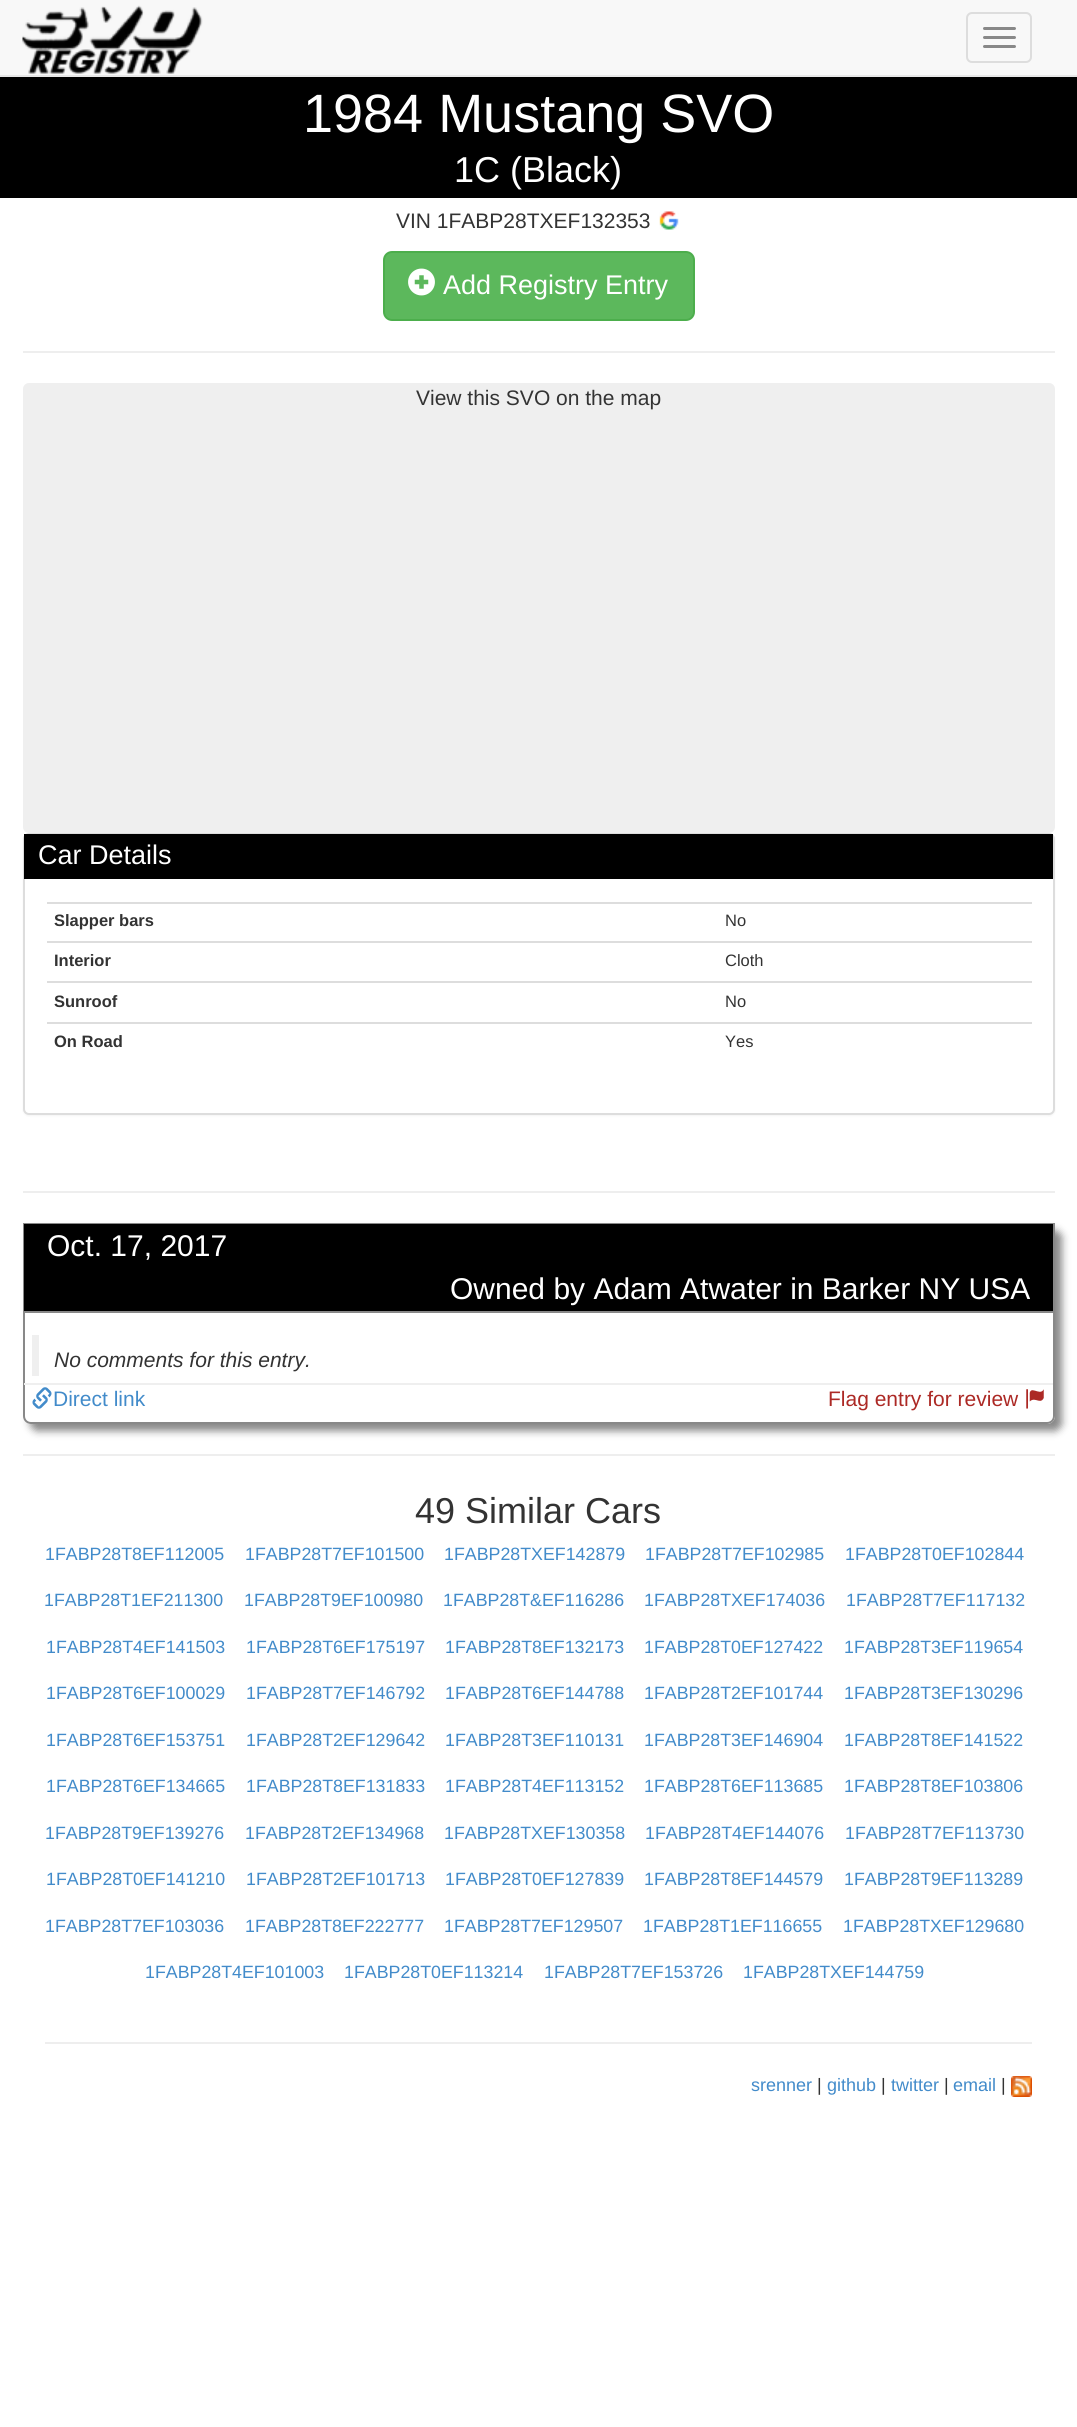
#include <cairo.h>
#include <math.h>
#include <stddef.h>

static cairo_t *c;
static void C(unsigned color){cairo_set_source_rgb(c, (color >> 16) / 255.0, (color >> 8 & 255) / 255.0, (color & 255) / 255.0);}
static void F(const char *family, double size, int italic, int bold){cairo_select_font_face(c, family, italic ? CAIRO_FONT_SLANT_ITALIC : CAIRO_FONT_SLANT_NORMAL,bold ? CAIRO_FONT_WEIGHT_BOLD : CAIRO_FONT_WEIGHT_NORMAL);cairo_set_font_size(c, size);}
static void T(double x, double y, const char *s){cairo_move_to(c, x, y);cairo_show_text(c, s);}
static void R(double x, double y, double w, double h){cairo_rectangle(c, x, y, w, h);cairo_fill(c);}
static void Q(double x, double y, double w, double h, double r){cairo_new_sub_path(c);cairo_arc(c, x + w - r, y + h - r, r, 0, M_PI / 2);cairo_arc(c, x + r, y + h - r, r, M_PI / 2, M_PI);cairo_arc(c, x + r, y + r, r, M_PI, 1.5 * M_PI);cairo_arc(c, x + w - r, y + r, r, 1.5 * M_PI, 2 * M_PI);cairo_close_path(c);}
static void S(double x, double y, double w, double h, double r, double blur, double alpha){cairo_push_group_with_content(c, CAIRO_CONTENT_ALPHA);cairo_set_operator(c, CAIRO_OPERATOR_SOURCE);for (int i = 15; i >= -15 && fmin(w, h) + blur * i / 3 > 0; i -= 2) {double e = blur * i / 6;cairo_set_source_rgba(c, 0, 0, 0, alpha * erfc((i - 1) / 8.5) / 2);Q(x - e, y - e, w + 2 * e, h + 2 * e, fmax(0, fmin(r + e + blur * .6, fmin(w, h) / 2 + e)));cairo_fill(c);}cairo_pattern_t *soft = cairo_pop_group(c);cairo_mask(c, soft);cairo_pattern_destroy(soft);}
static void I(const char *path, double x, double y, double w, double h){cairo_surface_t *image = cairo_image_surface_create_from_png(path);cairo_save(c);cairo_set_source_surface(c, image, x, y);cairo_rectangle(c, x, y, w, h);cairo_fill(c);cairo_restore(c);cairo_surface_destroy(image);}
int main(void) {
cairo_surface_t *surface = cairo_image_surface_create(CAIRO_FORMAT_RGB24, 1077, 2427);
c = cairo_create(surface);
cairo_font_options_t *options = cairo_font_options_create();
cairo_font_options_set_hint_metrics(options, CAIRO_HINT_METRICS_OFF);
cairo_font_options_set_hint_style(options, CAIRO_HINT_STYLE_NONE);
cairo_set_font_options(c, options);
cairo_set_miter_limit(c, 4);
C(0xffffff);
cairo_paint(c);
C(0xf8f8f8);
R(0,0,1077,75);
C(0xe7e7e7);
R(0,75,1077,2);
I("1.png",22,5,181,69);
Q(967,13,64,49,5);
C(0xdddddd);
cairo_stroke(c);
C(0x888888);
Q(983,27,33,3,1.5);
cairo_fill(c);
Q(983,36,33,3,1.5);
cairo_fill(c);
Q(983,45,33,3,1.5);
cairo_fill(c);
C(0x000000);
R(0,77,1077,121);
F("Liberation Sans",54,0,0);
C(0xffffff);
T(303,132,"1984 Mustang SVO");
F("Liberation Sans",36,0,0);
T(454,182,"1C (Black)");
F("Liberation Sans",21,0,0);
C(0x333333);
T(396,228,"VIN 1FABP28TXEF132353");
I("2.png",659,211,20,19);
C(0x5cb85c);
Q(384,252,310,68,8);
cairo_fill_preserve(c);
C(0x4cae4c);
cairo_stroke(c);
I("3.png",408,268,27,28);
F("Liberation Sans",27,0,0);
C(0xffffff);
T(443,294,"Add Registry Entry");
C(0xeeeeee);
R(23,351,1032,2);
C(0xefefef);
Q(23,383,1032,450,6);
cairo_fill(c);
F("Liberation Sans",21,0,0);
C(0x333333);
T(416,405,"View this SVO on the map");
C(0x000000);
S(23,834,1032,282,6,1,.05);
C(0xffffff);
Q(24,834,1030,280,5);
cairo_fill_preserve(c);
C(0xdddddd);
cairo_stroke(c);
C(0x000000);
R(24,834,1029,45);
F("Liberation Sans",27,0,0);
C(0xffffff);
T(38,864,"Car Details");
F("Liberation Sans",16.5,0,1);
C(0x333333);
T(54,926,"Slapper bars");
C(0xdddddd);
R(47,902,985,2);
F("Liberation Sans",16.5,0,0);
C(0x333333);
T(725,926,"No");
F("Liberation Sans",16.5,0,1);
T(54,966,"Interior");
C(0xdddddd);
R(47,941,985,2);
F("Liberation Sans",16.5,0,0);
C(0x333333);
T(725,966,"Cloth");
F("Liberation Sans",16.5,0,1);
T(54,1007,"Sunroof");
C(0xdddddd);
R(47,981,985,2);
F("Liberation Sans",16.5,0,0);
C(0x333333);
T(725,1007,"No");
F("Liberation Sans",16.5,0,1);
T(54,1047,"On Road");
C(0xdddddd);
R(47,1022,985,2);
F("Liberation Sans",16.5,0,0);
C(0x333333);
T(725,1047,"Yes");
C(0xeeeeee);
R(23,1191,1032,2);
cairo_save(c);
cairo_set_fill_rule(c,CAIRO_FILL_RULE_EVEN_ODD);
cairo_new_path(c);
cairo_move_to(c,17,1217);
cairo_line_to(c,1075,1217);
cairo_line_to(c,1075,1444);
cairo_line_to(c,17,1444);
cairo_close_path(c);
cairo_move_to(c,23,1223);
cairo_line_to(c,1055,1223);
cairo_line_to(c,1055,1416);
cairo_curve_to(c,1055,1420.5,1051.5,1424,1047,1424);
cairo_line_to(c,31,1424);
cairo_curve_to(c,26.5,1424,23,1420.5,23,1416);
cairo_close_path(c);
cairo_clip(c);
C(0x888888);
S(30,1230,1032,201,8,4,1);
cairo_restore(c);
cairo_new_path(c);
cairo_move_to(c,24,1224);
cairo_line_to(c,1054,1224);
cairo_line_to(c,1054,1416);
cairo_curve_to(c,1054,1420,1051,1423,1047,1423);
cairo_line_to(c,31,1423);
cairo_curve_to(c,27,1423,24,1420,24,1416);
cairo_close_path(c);
C(0x888888);
cairo_stroke(c);
C(0x000000);
R(24,1224,1029,87);
C(0x888888);
R(24,1311,1029,2);
F("Liberation Sans",30,0,0);
C(0xffffff);
T(47,1256,"Oct. 17, 2017");
T(450,1299,"Owned by Adam Atwater in Barker NY USA");
C(0xefefef);
R(32,1335,7,41);
F("Liberation Sans",21,1,0);
C(0x333333);
T(54,1367,"No comments for this entry.");
C(0xefefef);
R(24,1383,1029,2);
I("4.png",32,1387,20,22);
F("Liberation Sans",21,0,0);
C(0x428bca);
T(53,1406,"Direct link");
C(0xac2925);
T(828,1406,"Flag entry for review");
I("5.png",1026,1389,18,20);
C(0xeeeeee);
R(23,1454,1032,2);
F("Liberation Sans",36,0,0);
C(0x333333);
T(415,1523,"49 Similar Cars");
F("Liberation Sans",17.8,0,0);
C(0x428bca);
T(45,1560,"1FABP28T8EF112005");
T(245,1560,"1FABP28T7EF101500");
T(444,1560,"1FABP28TXEF142879");
T(645,1560,"1FABP28T7EF102985");
T(845,1560,"1FABP28T0EF102844");
T(44,1606,"1FABP28T1EF211300");
T(244,1606,"1FABP28T9EF100980");
T(443,1606,"1FABP28T&EF116286");
T(644,1606,"1FABP28TXEF174036");
T(846,1606,"1FABP28T7EF117132");
T(46,1653,"1FABP28T4EF141503");
T(246,1653,"1FABP28T6EF175197");
T(445,1653,"1FABP28T8EF132173");
T(644,1653,"1FABP28T0EF127422");
T(844,1653,"1FABP28T3EF119654");
T(46,1699,"1FABP28T6EF100029");
T(246,1699,"1FABP28T7EF146792");
T(445,1699,"1FABP28T6EF144788");
T(644,1699,"1FABP28T2EF101744");
T(844,1699,"1FABP28T3EF130296");
T(46,1746,"1FABP28T6EF153751");
T(246,1746,"1FABP28T2EF129642");
T(445,1746,"1FABP28T3EF110131");
T(644,1746,"1FABP28T3EF146904");
T(844,1746,"1FABP28T8EF141522");
T(46,1792,"1FABP28T6EF134665");
T(246,1792,"1FABP28T8EF131833");
T(445,1792,"1FABP28T4EF113152");
T(644,1792,"1FABP28T6EF113685");
T(844,1792,"1FABP28T8EF103806");
T(45,1839,"1FABP28T9EF139276");
T(245,1839,"1FABP28T2EF134968");
T(444,1839,"1FABP28TXEF130358");
T(645,1839,"1FABP28T4EF144076");
T(845,1839,"1FABP28T7EF113730");
T(46,1885,"1FABP28T0EF141210");
T(246,1885,"1FABP28T2EF101713");
T(445,1885,"1FABP28T0EF127839");
T(644,1885,"1FABP28T8EF144579");
T(844,1885,"1FABP28T9EF113289");
T(45,1932,"1FABP28T7EF103036");
T(245,1932,"1FABP28T8EF222777");
T(444,1932,"1FABP28T7EF129507");
T(643,1932,"1FABP28T1EF116655");
T(843,1932,"1FABP28TXEF129680");
T(145,1978,"1FABP28T4EF101003");
T(344,1978,"1FABP28T0EF113214");
T(544,1978,"1FABP28T7EF153726");
T(743,1978,"1FABP28TXEF144759");
C(0xeeeeee);
R(45,2042,987,2);
F("Liberation Sans",18,0,0);
C(0x428bca);
T(751,2091,"srenner");
C(0x333333);
T(817,2091,"|");
C(0x428bca);
T(827,2091,"github");
C(0x333333);
T(881,2091,"|");
C(0x428bca);
T(891,2091,"twitter");
C(0x333333);
T(944,2091,"|");
C(0x428bca);
T(953,2091,"email");
C(0x333333);
T(1001,2091,"|");
I("6.png",1011,2076,21,21);
cairo_surface_write_to_png(surface, "o.png");
cairo_font_options_destroy(options);
cairo_destroy(c);
cairo_surface_destroy(surface);
return 0;
}
